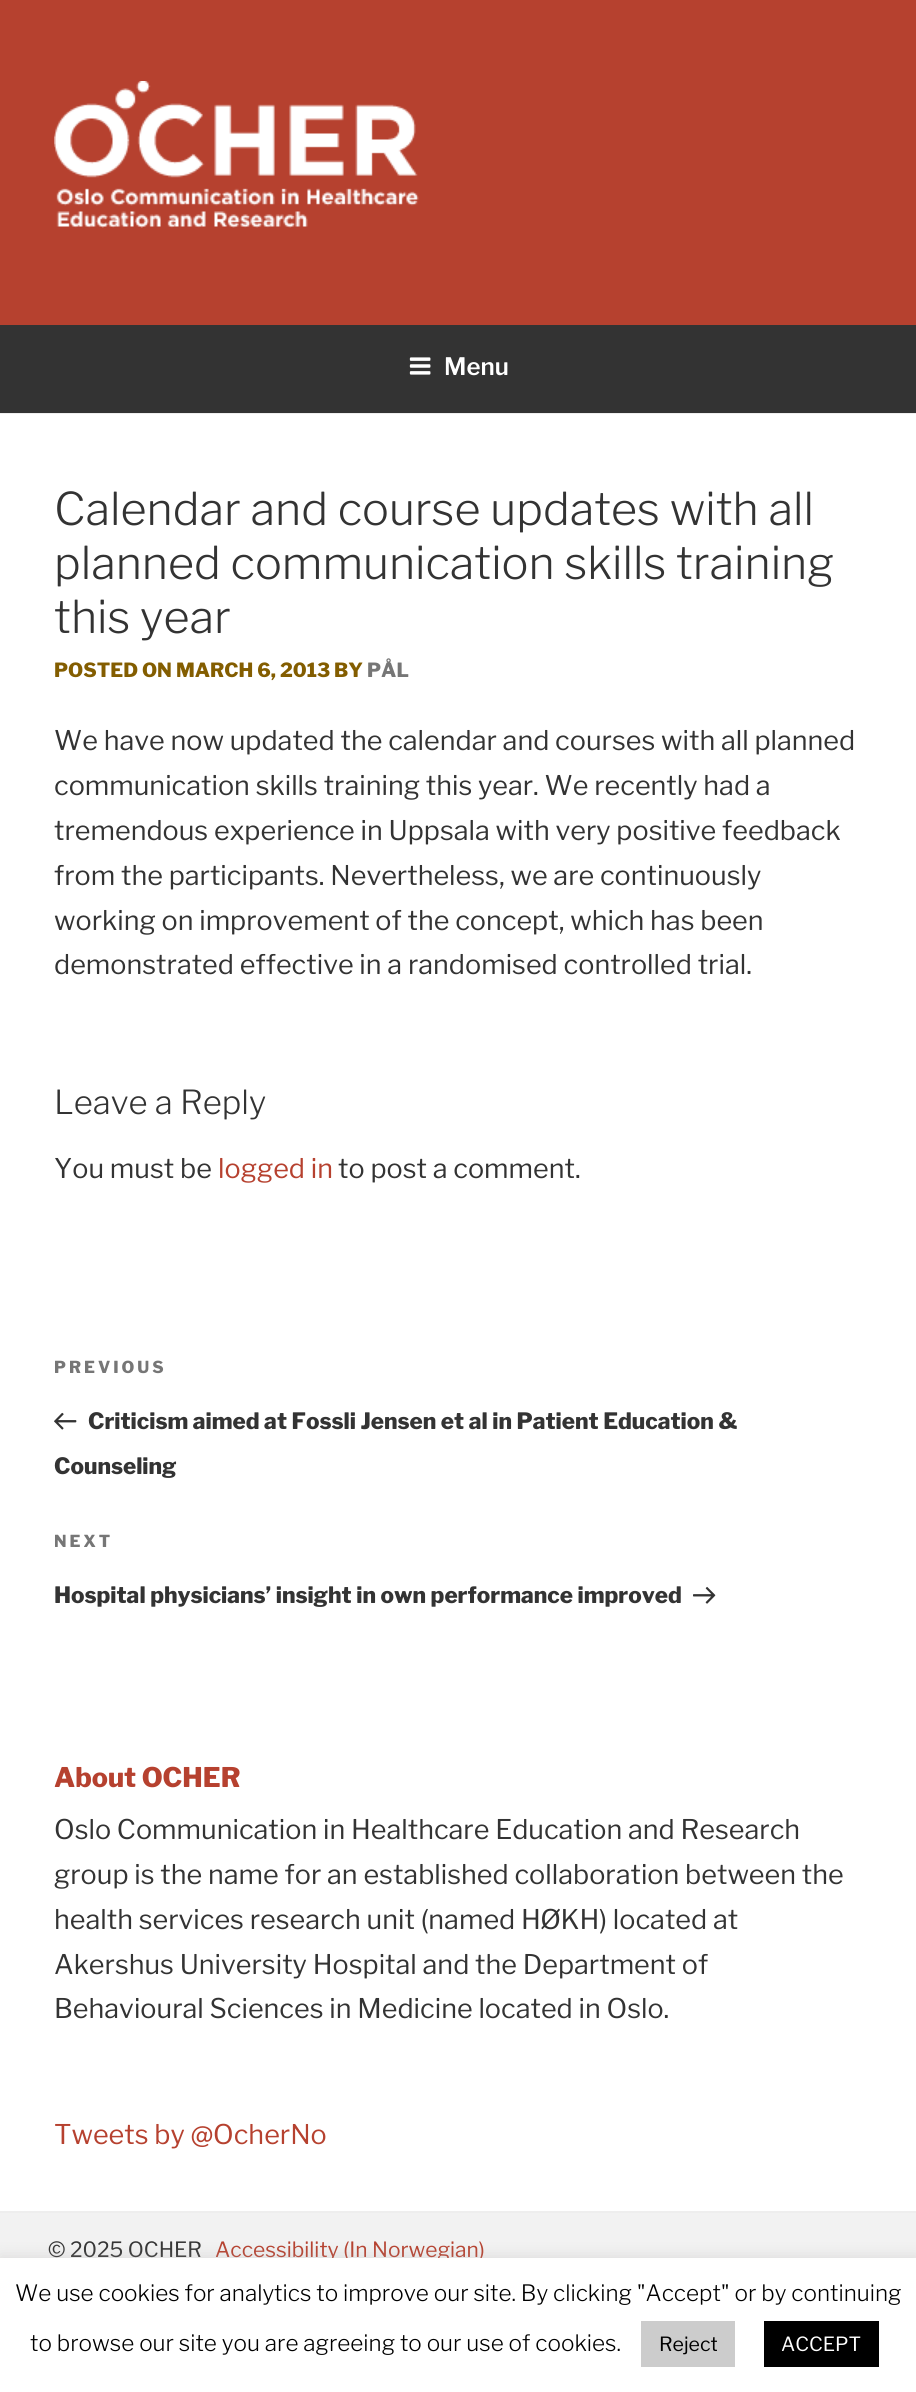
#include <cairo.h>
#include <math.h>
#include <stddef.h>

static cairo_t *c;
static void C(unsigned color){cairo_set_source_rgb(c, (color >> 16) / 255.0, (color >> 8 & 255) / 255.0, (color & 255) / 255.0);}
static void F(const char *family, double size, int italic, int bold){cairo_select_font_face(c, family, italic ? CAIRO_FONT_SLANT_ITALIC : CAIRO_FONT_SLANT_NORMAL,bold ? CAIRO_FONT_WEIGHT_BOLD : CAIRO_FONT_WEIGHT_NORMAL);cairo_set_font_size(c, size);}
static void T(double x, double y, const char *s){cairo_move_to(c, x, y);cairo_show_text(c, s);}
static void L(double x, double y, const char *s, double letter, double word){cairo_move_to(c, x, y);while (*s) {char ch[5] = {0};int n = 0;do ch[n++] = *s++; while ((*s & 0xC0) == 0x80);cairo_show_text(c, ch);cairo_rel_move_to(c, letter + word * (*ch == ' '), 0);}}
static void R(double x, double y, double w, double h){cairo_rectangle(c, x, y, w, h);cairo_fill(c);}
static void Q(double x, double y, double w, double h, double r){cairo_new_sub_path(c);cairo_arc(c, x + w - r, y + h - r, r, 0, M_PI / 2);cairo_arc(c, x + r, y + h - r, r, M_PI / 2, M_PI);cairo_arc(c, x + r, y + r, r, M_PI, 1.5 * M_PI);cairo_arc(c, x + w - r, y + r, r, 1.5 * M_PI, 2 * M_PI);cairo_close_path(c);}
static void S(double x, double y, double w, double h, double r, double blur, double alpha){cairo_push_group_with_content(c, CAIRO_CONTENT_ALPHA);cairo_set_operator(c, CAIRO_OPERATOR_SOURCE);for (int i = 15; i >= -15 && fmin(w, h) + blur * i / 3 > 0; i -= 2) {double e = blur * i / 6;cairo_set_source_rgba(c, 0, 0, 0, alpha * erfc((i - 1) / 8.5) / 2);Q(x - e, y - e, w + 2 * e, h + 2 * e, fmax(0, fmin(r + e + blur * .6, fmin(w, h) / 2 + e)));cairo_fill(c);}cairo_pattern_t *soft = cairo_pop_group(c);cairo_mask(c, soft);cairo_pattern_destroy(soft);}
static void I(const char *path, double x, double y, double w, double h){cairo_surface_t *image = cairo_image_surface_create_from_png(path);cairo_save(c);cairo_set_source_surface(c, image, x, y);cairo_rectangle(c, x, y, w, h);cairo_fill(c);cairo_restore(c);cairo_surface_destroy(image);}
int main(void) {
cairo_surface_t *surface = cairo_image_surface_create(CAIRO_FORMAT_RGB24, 916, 2392);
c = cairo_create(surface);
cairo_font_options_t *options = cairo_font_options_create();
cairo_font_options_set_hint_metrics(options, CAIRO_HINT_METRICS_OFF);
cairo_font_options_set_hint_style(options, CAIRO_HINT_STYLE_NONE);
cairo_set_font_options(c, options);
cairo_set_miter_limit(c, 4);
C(0xb6412f);
cairo_paint(c);
I("1.png",54,81,365,147);
C(0x333333);
R(0,325,916,88);
C(0xeeeeee);
R(0,413,916,1);
I("2.png",409,357,22,18);
F("Libre Franklin Thin",24,0,0);
C(0xffffff);
T(444,375,"Menu");
R(0,414,916,1797);
F("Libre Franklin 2 Thin",45,0,0);
C(0x333333);
T(54,525,"Calendar and course updates with all");
T(54,579,"planned communication skills training");
T(54,633,"this year");
F("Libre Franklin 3 Thin",19.5,0,0);
C(0x835d00);
T(54,677,"POSTED ON MARCH 6, 2013 BY");
C(0x767676);
T(367,677,"PÅL");
F("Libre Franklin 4 Thin",27,0,0);
C(0x333333);
T(54,750,"We have now updated the calendar and courses with all planned");
T(54,795,"communication skills training this year. We recently had a");
T(54,840,"tremendous experience in Uppsala with very positive feedback");
T(54,885,"from the participants. Nevertheless, we are continuously");
T(54,930,"working on improvement of the concept, which has been");
T(54,974,"demonstrated effective in a randomised controlled trial.");
F("Libre Franklin 2 Thin",33,0,0);
T(54,1114,"Leave a Reply");
F("Libre Franklin 4 Thin",27,0,0);
T(54,1178,"You must be");
C(0xb6412f);
T(218,1178,"logged in");
C(0x333333);
T(338,1178,"to post a comment.");
F("Libre Franklin 3 Thin",16.5,0,0);
C(0x767676);
L(54,1373,"PREVIOUS",3,0);
I("3.png",54,1412,23,18);
F("Libre Franklin 3 Thin",22.5,0,0);
C(0x333333);
T(88,1429,"Criticism aimed at Fossli Jensen et al in Patient Education &");
T(54,1474,"Counseling");
F("Libre Franklin 3 Thin",16.5,0,0);
C(0x767676);
L(54,1547,"NEXT",3,0);
F("Libre Franklin 3 Thin",22.5,0,0);
C(0x333333);
T(54,1603,"Hospital physicians’ insight in own performance improved");
I("4.png",693,1586,23,18);
F("Libre Franklin 3 Thin",27,0,0);
C(0xb6412f);
T(54,1787,"About OCHER");
F("Libre Franklin 4 Thin",27,0,0);
C(0x333333);
T(54,1839,"Oslo Communication in Healthcare Education and Research");
T(54,1884,"group is the name for an established collaboration between the");
T(54,1929,"health services research unit (named HØKH) located at");
T(54,1974,"Akershus University Hospital and the Department of");
T(54,2018,"Behavioural Sciences in Medicine located in Oslo.");
C(0xb6412f);
T(54,2144,"Tweets by @OcherNo");
C(0xf2f2f2);
R(0,2213,916,45);
C(0xeeeeee);
R(0,2211,916,2);
F("Libre Franklin 4 Thin",21,0,0);
C(0x333333);
T(48,2257,"© 2025 OCHER");
C(0xb6412f);
T(215,2257,"Accessibility (In Norwegian)");
C(0xacabab);
S(0,2256,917,135,0,7.5,.3);
C(0xffffff);
R(0,2258,916,134);
F("Libre Franklin 2 Thin",22.5,0,0);
C(0x000000);
T(15,2301,"We use cookies for analytics to improve our site. By clicking \"Accept\" or by continuing");
T(30,2351,"to browse our site you are agreeing to our use of cookies.");
C(0xcccccc);
R(641,2321,94,46);
F("Libre Franklin 4 Thin",19.5,0,0);
C(0x000000);
T(659,2351,"Reject");
R(764,2321,115,46);
C(0xffffff);
T(781,2351,"ACCEPT");
cairo_surface_write_to_png(surface, "o.png");
cairo_font_options_destroy(options);
cairo_destroy(c);
cairo_surface_destroy(surface);
return 0;
}
